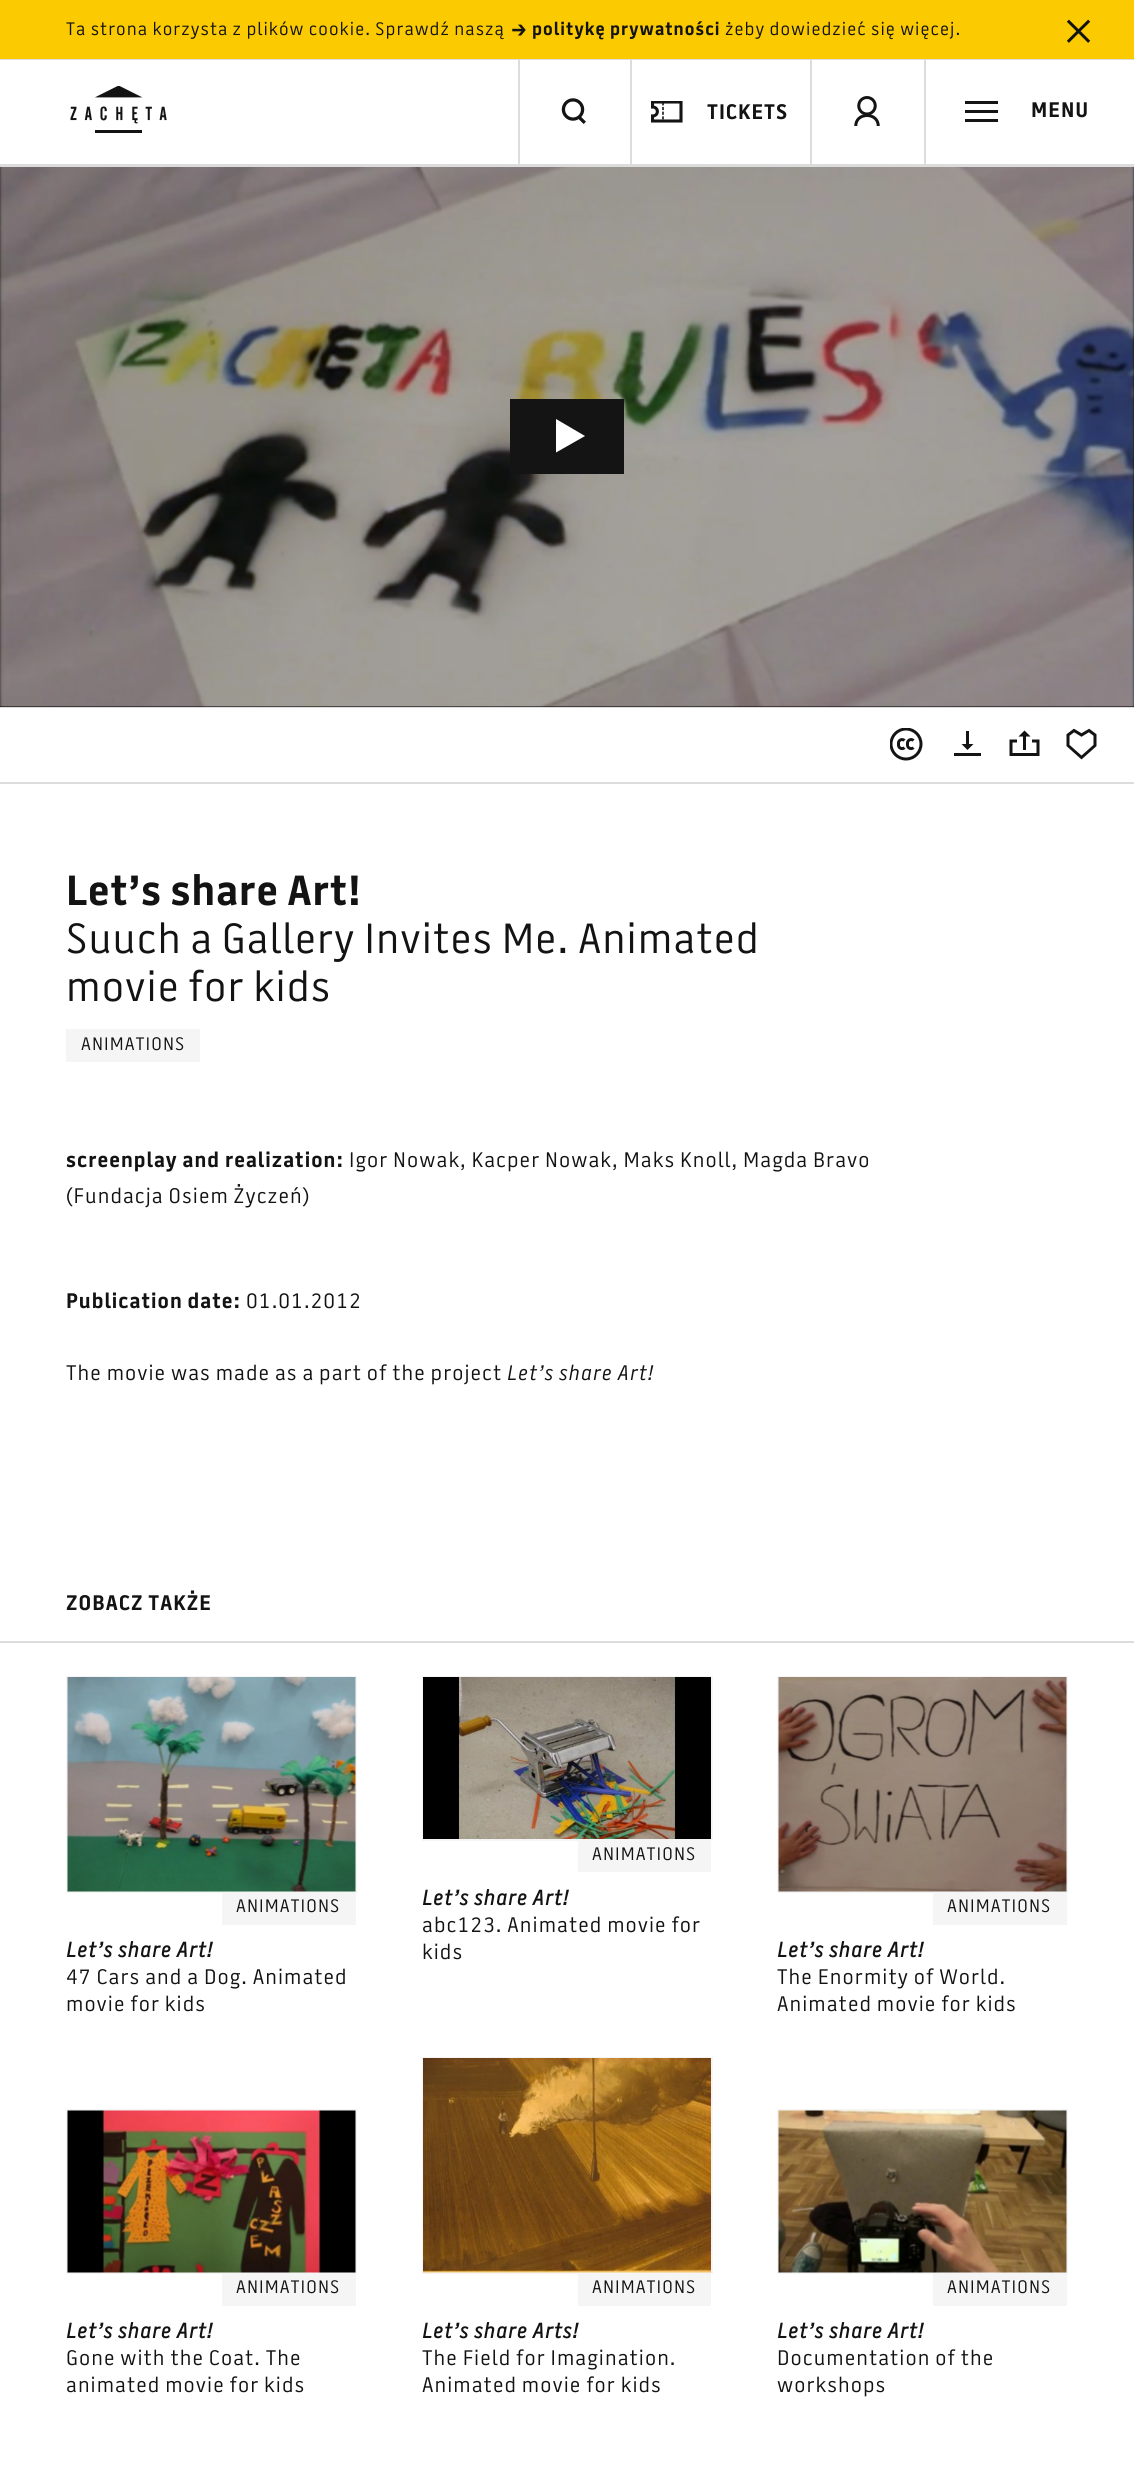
#include <cairo.h>
#include <math.h>
#include <stddef.h>

static cairo_t *c;
static void C(unsigned color){cairo_set_source_rgb(c, (color >> 16) / 255.0, (color >> 8 & 255) / 255.0, (color & 255) / 255.0);}
static void F(const char *family, double size, int italic, int bold){cairo_select_font_face(c, family, italic ? CAIRO_FONT_SLANT_ITALIC : CAIRO_FONT_SLANT_NORMAL,bold ? CAIRO_FONT_WEIGHT_BOLD : CAIRO_FONT_WEIGHT_NORMAL);cairo_set_font_size(c, size);}
static void L(double x, double y, const char *s, double letter, double word){cairo_move_to(c, x, y);while (*s) {char ch[5] = {0};int n = 0;do ch[n++] = *s++; while ((*s & 0xC0) == 0x80);cairo_show_text(c, ch);cairo_rel_move_to(c, letter + word * (*ch == ' '), 0);}}
static void R(double x, double y, double w, double h){cairo_rectangle(c, x, y, w, h);cairo_fill(c);}
static void I(const char *path, double x, double y, double w, double h){cairo_surface_t *image = cairo_image_surface_create_from_png(path);cairo_save(c);cairo_set_source_surface(c, image, x, y);cairo_rectangle(c, x, y, w, h);cairo_fill(c);cairo_restore(c);cairo_surface_destroy(image);}
int main(void) {
cairo_surface_t *surface = cairo_image_surface_create(CAIRO_FORMAT_RGB24, 1134, 2478);
c = cairo_create(surface);
cairo_font_options_t *options = cairo_font_options_create();
cairo_font_options_set_hint_metrics(options, CAIRO_HINT_METRICS_OFF);
cairo_font_options_set_hint_style(options, CAIRO_HINT_STYLE_NONE);
cairo_set_font_options(c, options);
cairo_set_miter_limit(c, 4);
C(0xffffff);
cairo_paint(c);
C(0xfcca00);
R(0,0,1134,59);
C(0xdcdcdc);
R(0,59,1134,1);
F("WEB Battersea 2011",18,0,0);
C(0x131313);
L(66,35,"Ta strona korzysta z plików cookie. Sprawdź naszą",1.05,0);
I("1.png",512,24,14,12);
F("WEB Battersea 2011",18,0,1);
L(532,35,"politykę prywatności",1.05,0);
F("WEB Battersea 2011",18,0,0);
L(725,35,"żeby dowiedzieć się więcej.",1.05,0);
I("2.png",1066,19,25,24);
I("3.png",70,86,97,47);
C(0xdcdcdc);
R(518,60,2,105);
I("4.png",561,98,25,26);
R(894,164,240,2);
R(810,60,2,105);
I("5.png",854,96,26,30);
R(630,60,2,105);
cairo_save(c);
cairo_rectangle(c,651,101,32,22);
cairo_clip(c);
cairo_new_path(c);
cairo_move_to(c,681,102);
cairo_line_to(c,681,121);
cairo_line_to(c,652.5,121);
cairo_line_to(c,652.5,116);
cairo_curve_to(c,659,116,659,107,652.5,107);
cairo_line_to(c,652.5,102);
cairo_close_path(c);
C(0x141414);
cairo_set_line_width(c,3.1);
cairo_stroke(c);
cairo_restore(c);
cairo_new_path(c);
cairo_move_to(c,663,103);
cairo_line_to(c,663,121.5);
C(0x141414);
cairo_set_line_width(c,1.6);
cairo_set_line_cap(c,CAIRO_LINE_CAP_SQUARE);
cairo_set_dash(c,(double[]){1.57,3.15},2,0);
cairo_stroke(c);
F("WEB Battersea 2011",21,0,1);
C(0x131313);
L(707,119,"TICKETS",1,0);
C(0xdcdcdc);
R(924,60,2,105);
C(0x141414);
R(965,101,33,3);
R(965,110,33,3);
R(965,119,33,3);
C(0x131313);
L(1031,117,"MENU",1.05,0);
C(0xdcdcdc);
R(0,164,894,2);
R(0,166,1134,1);
R(0,707,1134,1);
I("6.png",890,728,33,33);
C(0x141414);
R(966,731,3,15);
cairo_new_path(c);
cairo_move_to(c,967.5,750);
cairo_line_to(c,961.5,744);
cairo_line_to(c,973.5,744);
cairo_close_path(c);
cairo_fill(c);
R(954,753,27,3);
I("7.png",1009,730,31,26);
I("8.png",1066,728,31,32);
C(0xdcdcdc);
R(0,782,1134,2);
C(0x000000);
R(0,167,1134,540);
I("9.png",0,167,1134,540);
C(0x141414);
R(510,399,114,75);
C(0xffffff);
cairo_new_path(c);
cairo_move_to(c,556,419);
cairo_line_to(c,585,436);
cairo_line_to(c,556,452.5);
cairo_close_path(c);
cairo_fill(c);
F("WEB Battersea 2011",42,0,1);
C(0x131313);
L(66,905,"Let’s share Art!",1.05,0);
F("WEB Battersea 2011",42,0,0);
L(66,953,"Suuch a Gallery Invites Me. Animated",1.05,0);
L(66,1001,"movie for kids",1.05,0);
C(0xf5f5f5);
R(66,1029,134,33);
F("WEB Battersea 2011",18,0,0);
C(0x131313);
L(81,1050,"ANIMATIONS",1.05,0);
F("WEB Battersea 2011",21,0,1);
L(66,1167,"screenplay and realization:",1.05,0);
F("WEB Battersea 2011",21,0,0);
L(349,1167,"Igor Nowak, Kacper Nowak, Maks Knoll, Magda Bravo",1.05,0);
L(66,1203,"(Fundacja Osiem Życzeń)",1.05,0);
F("WEB Battersea 2011",21,0,1);
L(66,1308,"Publication date:",1.05,0);
F("WEB Battersea 2011",21,0,0);
L(246,1308,"01.01.2012",1.05,0);
L(66,1380,"The movie was made as a part of the project",1.05,0);
F("WEB Battersea 2011",21,1,0);
L(507,1380,"Let’s share Art!",1.05,0);
C(0xdcdcdc);
R(0,1641,1134,2);
F("WEB Battersea 2011",21,0,1);
C(0x131313);
L(66,1610,"ZOBACZ TAKŻE",1.05,0);
C(0xf5f5f5);
R(66,1676,291,217);
I("10.png",67,1677,289,215);
R(222,1893,134,32);
F("WEB Battersea 2011",18,0,0);
C(0x131313);
L(236,1912,"ANIMATIONS",1.05,0);
F("WEB Battersea 2011",21,1,1);
L(66,1957,"Let’s share Art!",1.05,0);
F("WEB Battersea 2011",21,0,0);
L(66,1984,"47 Cars and a Dog. Animated",1.05,0);
L(66,2011,"movie for kids",1.05,0);
C(0xf5f5f5);
R(422,1676,291,165);
I("11.png",423,1677,288,162);
R(578,1841,133,31);
F("WEB Battersea 2011",18,0,0);
C(0x131313);
L(592,1860,"ANIMATIONS",1.05,0);
F("WEB Battersea 2011",21,1,1);
L(422,1905,"Let’s share Art!",1.05,0);
F("WEB Battersea 2011",21,0,0);
L(422,1932,"abc123. Animated movie for",1.05,0);
L(422,1959,"kids",1.05,0);
C(0xf5f5f5);
R(777,1676,291,217);
I("12.png",778,1677,289,215);
R(933,1893,134,32);
F("WEB Battersea 2011",18,0,0);
C(0x131313);
L(947,1912,"ANIMATIONS",1.05,0);
F("WEB Battersea 2011",21,1,1);
L(777,1957,"Let’s share Art!",1.05,0);
F("WEB Battersea 2011",21,0,0);
L(777,1984,"The Enormity of World.",1.05,0);
L(777,2011,"Animated movie for kids",1.05,0);
C(0xf5f5f5);
R(66,2109,291,165);
I("13.png",67,2110,289,163);
R(222,2274,134,32);
F("WEB Battersea 2011",18,0,0);
C(0x131313);
L(236,2293,"ANIMATIONS",1.05,0);
F("WEB Battersea 2011",21,1,1);
L(66,2338,"Let’s share Art!",1.05,0);
F("WEB Battersea 2011",21,0,0);
L(66,2365,"Gone with the Coat. The",1.05,0);
L(66,2392,"animated movie for kids",1.05,0);
C(0xf5f5f5);
R(422,2057,291,217);
I("14.png",423,2058,288,215);
R(578,2274,133,32);
F("WEB Battersea 2011",18,0,0);
C(0x131313);
L(592,2293,"ANIMATIONS",1.05,0);
F("WEB Battersea 2011",21,1,1);
L(422,2338,"Let’s share Arts!",1.05,0);
F("WEB Battersea 2011",21,0,0);
L(422,2365,"The Field for Imagination.",1.05,0);
L(422,2392,"Animated movie for kids",1.05,0);
C(0xf5f5f5);
R(777,2109,291,165);
I("15.png",778,2110,289,163);
R(933,2274,134,32);
F("WEB Battersea 2011",18,0,0);
C(0x131313);
L(947,2293,"ANIMATIONS",1.05,0);
F("WEB Battersea 2011",21,1,1);
L(777,2338,"Let’s share Art!",1.05,0);
F("WEB Battersea 2011",21,0,0);
L(777,2365,"Documentation of the",1.05,0);
L(777,2392,"workshops",1.05,0);
cairo_surface_write_to_png(surface, "o.png");
cairo_font_options_destroy(options);
cairo_destroy(c);
cairo_surface_destroy(surface);
return 0;
}
